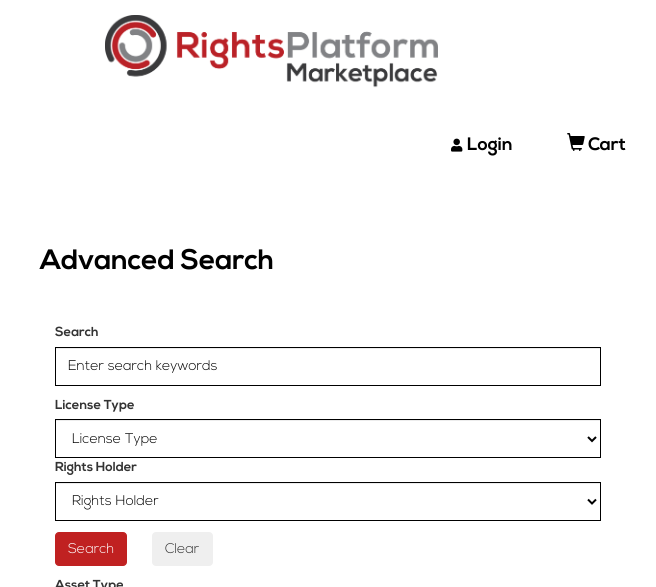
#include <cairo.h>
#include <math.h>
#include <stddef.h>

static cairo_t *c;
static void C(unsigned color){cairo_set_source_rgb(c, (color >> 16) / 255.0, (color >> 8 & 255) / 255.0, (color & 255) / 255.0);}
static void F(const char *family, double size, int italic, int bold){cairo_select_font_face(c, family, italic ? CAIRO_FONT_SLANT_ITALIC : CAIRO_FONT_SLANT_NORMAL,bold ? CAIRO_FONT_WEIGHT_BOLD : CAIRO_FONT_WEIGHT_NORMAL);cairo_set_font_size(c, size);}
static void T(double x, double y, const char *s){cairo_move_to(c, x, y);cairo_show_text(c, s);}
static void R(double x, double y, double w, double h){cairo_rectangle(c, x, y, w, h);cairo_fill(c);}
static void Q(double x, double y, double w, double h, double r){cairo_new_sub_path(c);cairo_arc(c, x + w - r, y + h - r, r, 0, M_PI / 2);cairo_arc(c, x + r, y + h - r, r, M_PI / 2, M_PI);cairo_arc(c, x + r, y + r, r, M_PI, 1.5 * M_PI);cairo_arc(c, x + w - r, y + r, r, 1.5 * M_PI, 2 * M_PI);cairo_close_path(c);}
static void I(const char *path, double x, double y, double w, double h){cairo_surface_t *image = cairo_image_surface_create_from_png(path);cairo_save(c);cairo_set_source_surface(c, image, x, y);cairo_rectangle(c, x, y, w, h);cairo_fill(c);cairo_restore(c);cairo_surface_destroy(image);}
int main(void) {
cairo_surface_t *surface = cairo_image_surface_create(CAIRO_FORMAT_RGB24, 656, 587);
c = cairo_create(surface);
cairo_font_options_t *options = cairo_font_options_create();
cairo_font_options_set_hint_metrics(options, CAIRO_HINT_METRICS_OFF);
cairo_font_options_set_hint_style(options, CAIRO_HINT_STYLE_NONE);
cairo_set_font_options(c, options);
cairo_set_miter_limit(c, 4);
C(0xffffff);
cairo_paint(c);
I("1.png",105,15,333,73);
I("2.png",451,138,12,14);
F("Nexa",18,0,1);
C(0x000000);
T(467,150,"Login");
I("3.png",567,133,18,18);
T(588,150,"Cart");
F("Nexa",28,0,1);
T(40,269,"Advanced Search");
F("Nexa",13,0,1);
C(0x333333);
T(55,336,"Search");
C(0xececec);
R(56,348,544,1);
cairo_rectangle(c,55.5,347.5,545,38);
C(0x000000);
cairo_set_line_width(c,1);
cairo_stroke(c);
F("Nexa",14,0,0);
T(68,370,"Enter search keywords");
F("Nexa",13,0,1);
C(0x333333);
T(55,409,"License Type");
C(0xececec);
R(56,420,544,1);
cairo_rectangle(c,55.5,419.5,545,38);
C(0x000000);
cairo_stroke(c);
cairo_new_path(c);
cairo_move_to(c,588,437);
cairo_line_to(c,592,441);
cairo_line_to(c,596,437);
cairo_set_line_width(c,2);
cairo_stroke(c);
F("Nexa",14,0,0);
T(72,443,"License Type");
F("Nexa",13,0,1);
C(0x333333);
T(55,471,"Rights Holder");
C(0xececec);
R(56,483,544,1);
cairo_rectangle(c,55.5,482.5,545,38);
C(0x000000);
cairo_set_line_width(c,1);
cairo_stroke(c);
cairo_new_path(c);
cairo_move_to(c,588,499.5);
cairo_line_to(c,592,503.5);
cairo_line_to(c,596,499.5);
cairo_set_line_width(c,2);
cairo_stroke(c);
F("Nexa",14,0,0);
T(72,505,"Rights Holder");
C(0xc02121);
Q(55.5,532.5,71,33,3.5);
cairo_fill_preserve(c);
cairo_set_line_width(c,1);
cairo_stroke(c);
C(0xffffff);
T(68,553,"Search");
C(0xefefef);
Q(152,532,61,34,4);
cairo_fill(c);
C(0x333333);
T(165,553,"Clear");
F("Nexa",13,0,1);
T(55,589,"Asset Type");
cairo_surface_write_to_png(surface, "o.png");
cairo_font_options_destroy(options);
cairo_destroy(c);
cairo_surface_destroy(surface);
return 0;
}
